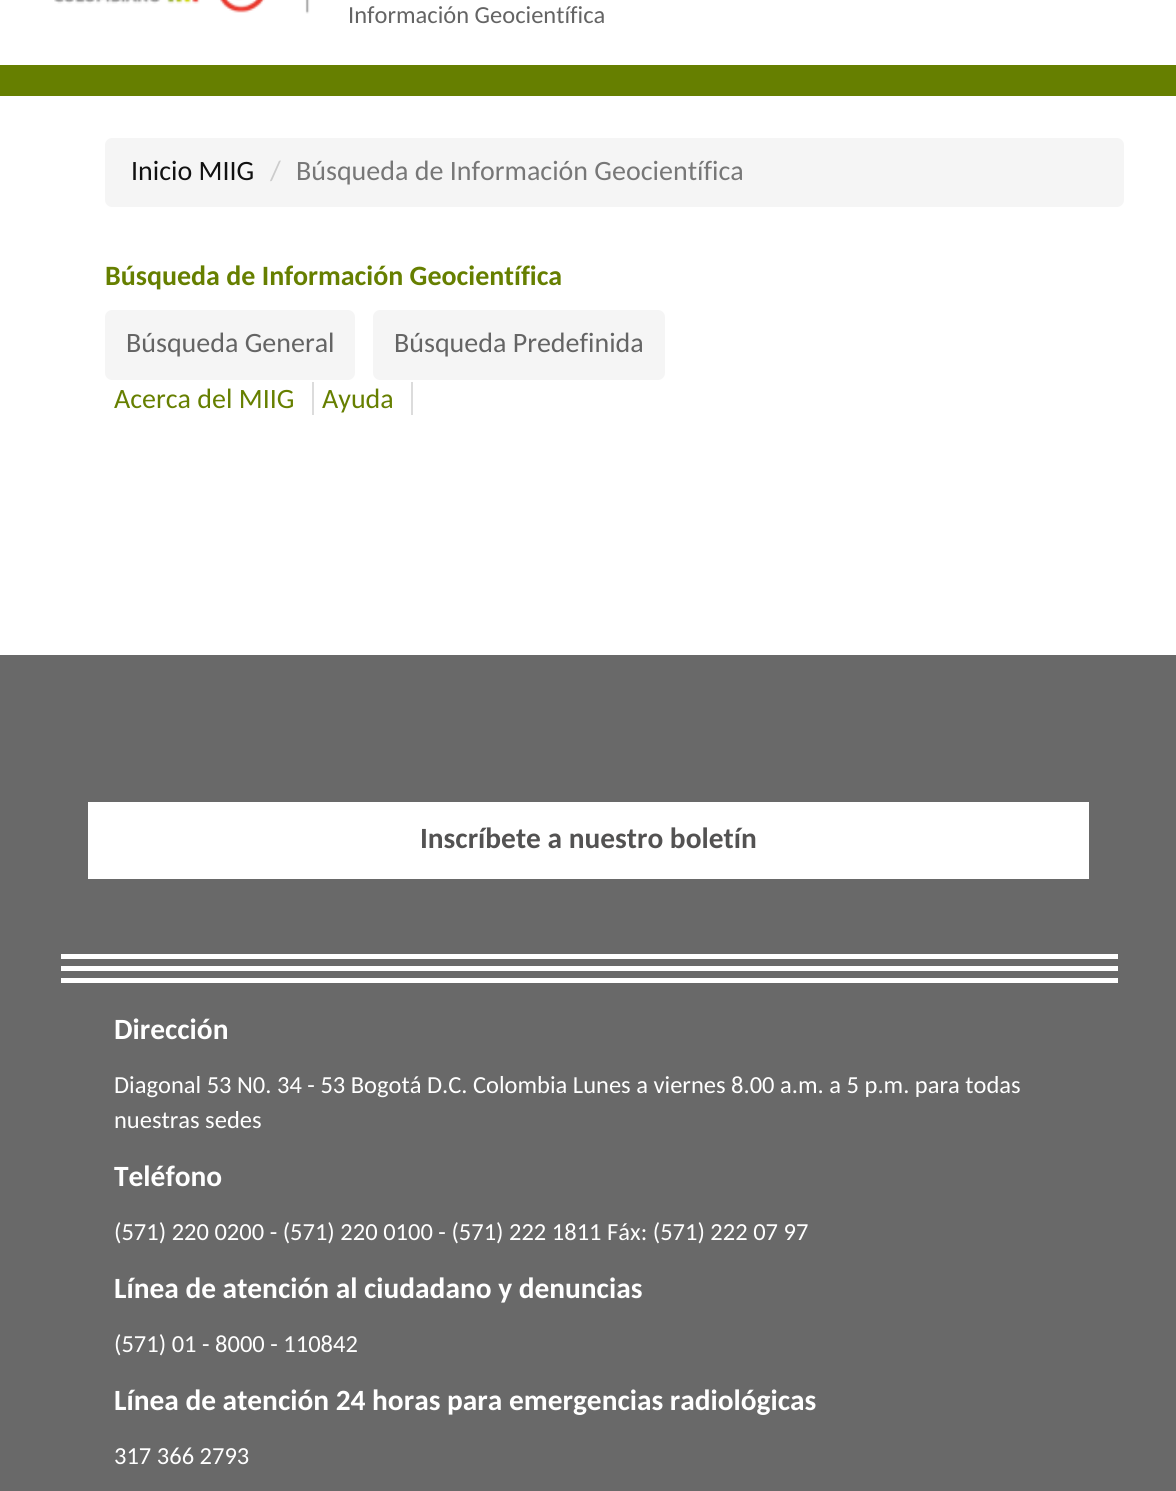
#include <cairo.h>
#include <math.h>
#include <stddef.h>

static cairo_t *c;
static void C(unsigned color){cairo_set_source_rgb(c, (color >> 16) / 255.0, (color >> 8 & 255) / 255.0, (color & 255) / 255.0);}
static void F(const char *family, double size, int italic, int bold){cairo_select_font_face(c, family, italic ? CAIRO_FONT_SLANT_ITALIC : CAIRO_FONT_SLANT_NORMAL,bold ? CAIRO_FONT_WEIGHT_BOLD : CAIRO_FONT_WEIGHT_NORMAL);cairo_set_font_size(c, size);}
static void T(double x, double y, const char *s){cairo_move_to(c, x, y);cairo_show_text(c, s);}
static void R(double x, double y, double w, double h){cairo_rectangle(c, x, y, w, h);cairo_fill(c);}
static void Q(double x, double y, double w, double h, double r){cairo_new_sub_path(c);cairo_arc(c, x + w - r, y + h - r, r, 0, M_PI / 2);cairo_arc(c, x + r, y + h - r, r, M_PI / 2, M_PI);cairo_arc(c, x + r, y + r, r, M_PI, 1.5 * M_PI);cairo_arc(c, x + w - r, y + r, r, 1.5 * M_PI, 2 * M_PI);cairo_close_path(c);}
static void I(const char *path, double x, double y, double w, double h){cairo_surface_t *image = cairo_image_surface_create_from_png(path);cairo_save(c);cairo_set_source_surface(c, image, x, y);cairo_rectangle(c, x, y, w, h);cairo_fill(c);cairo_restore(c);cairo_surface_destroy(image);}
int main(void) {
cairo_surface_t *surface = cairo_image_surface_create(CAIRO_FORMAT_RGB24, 1176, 1491);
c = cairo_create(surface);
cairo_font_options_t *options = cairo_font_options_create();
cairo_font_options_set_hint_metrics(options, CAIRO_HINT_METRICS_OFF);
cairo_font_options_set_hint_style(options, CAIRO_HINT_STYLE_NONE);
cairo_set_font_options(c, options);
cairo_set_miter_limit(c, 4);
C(0xffffff);
cairo_paint(c);
I("1.png",54,0,256,14);
F("Carlito",24.5,0,0);
C(0x646464);
T(348,23,"Información Geocientífica");
C(0x667f00);
R(0,65,1176,31);
C(0xf5f5f5);
Q(105,138,1019,69,7);
cairo_fill(c);
F("Carlito",28,0,0);
C(0x111111);
T(131,180,"Inicio MIIG");
C(0xcccccc);
T(270,180,"/");
C(0x777777);
T(296,180,"Búsqueda de Información Geocientífica");
F("Carlito",28,0,1);
C(0x667f00);
T(105,285,"Búsqueda de Información Geocientífica");
C(0xf5f5f5);
Q(105,310,250,70,7);
cairo_fill(c);
F("Carlito",28,0,0);
C(0x646464);
T(126,352,"Búsqueda General");
C(0xf5f5f5);
Q(373,310,292,70,7);
cairo_fill(c);
C(0x646464);
T(394,352,"Búsqueda Predefinida");
C(0x667f00);
T(114,408,"Acerca del MIIG");
C(0xdcdcdc);
R(312,382,2,33);
C(0x667f00);
T(322,408,"Ayuda");
C(0xdcdcdc);
R(411,382,2,33);
C(0x696969);
R(0,655,1176,836);
C(0xffffff);
R(88,802,1001,77);
F("Carlito",29.4,0,1);
C(0x535252);
T(420,848,"Inscríbete a nuestro boletín");
C(0xffffff);
R(61,954,1057,5);
R(61,966,1057,5);
R(61,978,1057,5);
T(114,1039,"Dirección");
F("Carlito",24.5,0,0);
T(114,1093,"Diagonal 53 N0. 34 - 53 Bogotá D.C. Colombia Lunes a viernes 8.00 a.m. a 5 p.m. para todas");
T(114,1128,"nuestras sedes");
F("Carlito",29.4,0,1);
T(114,1186,"Teléfono");
F("Carlito",24.5,0,0);
T(114,1240,"(571) 220 0200 - (571) 220 0100 - (571) 222 1811 Fáx: (571) 222 07 97");
F("Carlito",29.4,0,1);
T(114,1298,"Línea de atención al ciudadano y denuncias");
F("Carlito",24.5,0,0);
T(114,1352,"(571) 01 - 8000 - 110842");
F("Carlito",29.4,0,1);
T(114,1410,"Línea de atención 24 horas para emergencias radiológicas");
F("Carlito",24.5,0,0);
T(114,1464,"317 366 2793");
cairo_surface_write_to_png(surface, "o.png");
cairo_font_options_destroy(options);
cairo_destroy(c);
cairo_surface_destroy(surface);
return 0;
}
